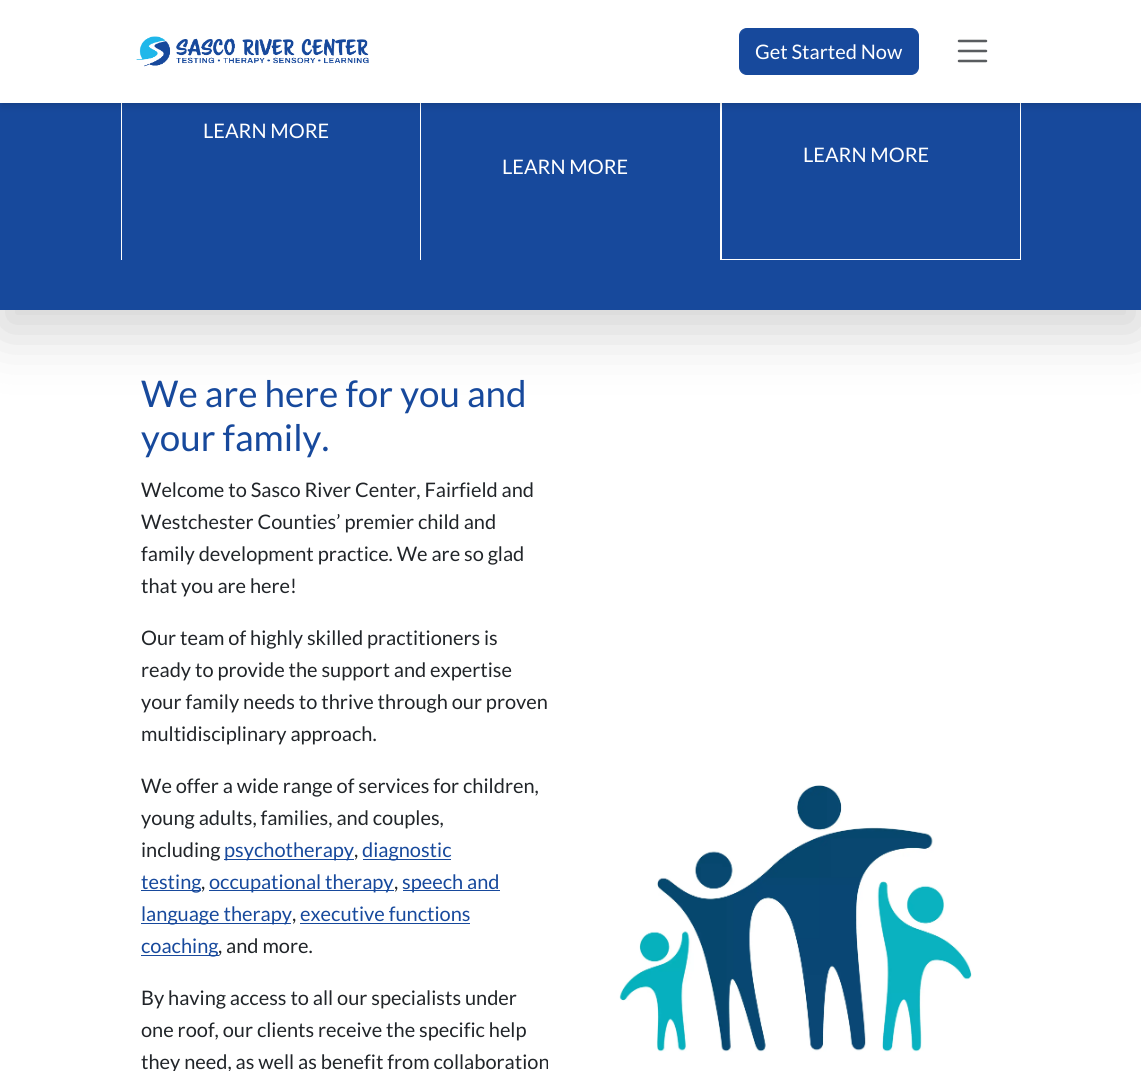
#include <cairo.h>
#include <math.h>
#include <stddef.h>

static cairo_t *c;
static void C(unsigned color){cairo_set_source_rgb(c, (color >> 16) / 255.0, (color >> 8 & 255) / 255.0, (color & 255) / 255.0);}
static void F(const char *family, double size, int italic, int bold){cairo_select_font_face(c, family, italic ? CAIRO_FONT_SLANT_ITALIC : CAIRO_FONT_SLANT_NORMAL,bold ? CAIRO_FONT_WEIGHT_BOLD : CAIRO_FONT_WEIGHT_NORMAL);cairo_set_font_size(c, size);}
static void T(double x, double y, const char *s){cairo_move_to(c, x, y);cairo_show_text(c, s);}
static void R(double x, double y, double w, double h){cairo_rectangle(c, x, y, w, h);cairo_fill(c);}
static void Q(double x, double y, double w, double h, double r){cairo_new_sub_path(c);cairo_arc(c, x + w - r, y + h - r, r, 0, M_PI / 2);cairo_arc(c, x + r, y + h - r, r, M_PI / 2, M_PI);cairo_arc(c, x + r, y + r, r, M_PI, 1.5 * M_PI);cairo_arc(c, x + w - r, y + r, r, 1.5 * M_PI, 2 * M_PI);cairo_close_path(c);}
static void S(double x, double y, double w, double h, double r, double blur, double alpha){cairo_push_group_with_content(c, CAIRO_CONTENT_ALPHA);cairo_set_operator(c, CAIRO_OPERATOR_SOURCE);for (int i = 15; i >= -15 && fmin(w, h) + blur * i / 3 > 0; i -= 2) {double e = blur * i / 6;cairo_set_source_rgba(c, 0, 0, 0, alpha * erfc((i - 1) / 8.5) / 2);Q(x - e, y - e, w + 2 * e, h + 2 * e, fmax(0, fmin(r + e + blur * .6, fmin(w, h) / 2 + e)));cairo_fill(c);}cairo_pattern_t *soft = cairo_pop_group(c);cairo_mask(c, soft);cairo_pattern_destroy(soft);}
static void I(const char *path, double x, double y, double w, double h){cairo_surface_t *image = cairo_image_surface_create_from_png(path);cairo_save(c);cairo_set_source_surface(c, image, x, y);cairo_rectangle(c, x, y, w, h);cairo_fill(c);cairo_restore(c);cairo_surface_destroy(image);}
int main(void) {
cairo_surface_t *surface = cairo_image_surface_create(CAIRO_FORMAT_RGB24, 1141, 1071);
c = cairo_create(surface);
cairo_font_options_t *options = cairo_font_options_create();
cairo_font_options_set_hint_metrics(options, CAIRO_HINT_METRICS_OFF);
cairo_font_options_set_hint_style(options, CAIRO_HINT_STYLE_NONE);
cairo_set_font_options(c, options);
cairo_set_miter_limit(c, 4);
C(0xffffff);
cairo_paint(c);
C(0x000000);
S(0,-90,1141,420,0,30,.18);
C(0x17499c);
R(0,103,1141,207);
C(0xffffff);
R(420,103,1,157);
R(121,103,1,157);
cairo_rectangle(c,721.5,-.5,299,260);
cairo_set_line_width(c,1);
cairo_stroke(c);
R(720,103,1,157);
C(0x000000);
S(3,5,1136,98,0,2.5,.1);
S(1,6,1139,100,0,4,.1);
C(0xffffff);
R(0,0,1141,103);
I("1.png",136,36,233,31);
C(0x17499c);
Q(739.5,28.5,179,46,7.5);
cairo_fill_preserve(c);
cairo_stroke(c);
F("Lato",20,0,0);
C(0xffffff);
T(755,59,"Get Started Now");
cairo_new_path(c);
cairo_move_to(c,959,41);
cairo_line_to(c,986,41);
cairo_move_to(c,959,51);
cairo_line_to(c,986,51);
cairo_move_to(c,959,61);
cairo_line_to(c,986,61);
C(0x595c5f);
cairo_set_line_width(c,2.5);
cairo_set_line_cap(c,CAIRO_LINE_CAP_ROUND);
cairo_stroke(c);
C(0xffffff);
T(203,138,"LEARN MORE");
T(803,162,"LEARN MORE");
T(502,174,"LEARN MORE");
F("Lato",36.75,0,0);
C(0x17499c);
T(141,407,"We are here for you and");
T(141,451,"your family.");
F("Lato",20,0,0);
C(0x212529);
T(141,497,"Welcome to Sasco River Center, Fairfield and");
T(141,529,"Westchester Counties’ premier child and");
T(141,561,"family development practice. We are so glad");
T(141,593,"that you are here!");
T(141,645,"Our team of highly skilled practitioners is");
T(141,677,"ready to provide the support and expertise");
T(141,709,"your family needs to thrive through our proven");
T(141,741,"multidisciplinary approach.");
T(141,793,"We offer a wide range of services for children,");
T(141,825,"young adults, families, and couples,");
T(141,857,"including");
C(0x17499c);
R(224,859,130,1);
T(224,857,"psychotherapy");
C(0x212529);
T(354,857,",");
C(0x17499c);
R(363,859,88,1);
T(362,857,"diagnostic");
R(141,890,60,1);
T(141,889,"testing");
C(0x212529);
T(201,889,",");
C(0x17499c);
R(209,890,185,1);
T(209,889,"occupational therapy");
C(0x212529);
T(394,889,",");
C(0x17499c);
R(403,890,97,1);
T(402,889,"speech and");
R(141,923,150,1);
T(141,921,"language therapy");
C(0x212529);
T(292,921,",");
C(0x17499c);
R(300,923,170,1);
T(300,921,"executive functions");
R(141,955,78,1);
T(141,953,"coaching");
C(0x212529);
T(218,953,", and more.");
T(141,1005,"By having access to all our specialists under");
T(141,1037,"one roof, our clients receive the specific help");
T(141,1069,"they need, as well as benefit from collaboration");
I("2.png",619,785,353,267);
cairo_surface_write_to_png(surface, "o.png");
cairo_font_options_destroy(options);
cairo_destroy(c);
cairo_surface_destroy(surface);
return 0;
}
